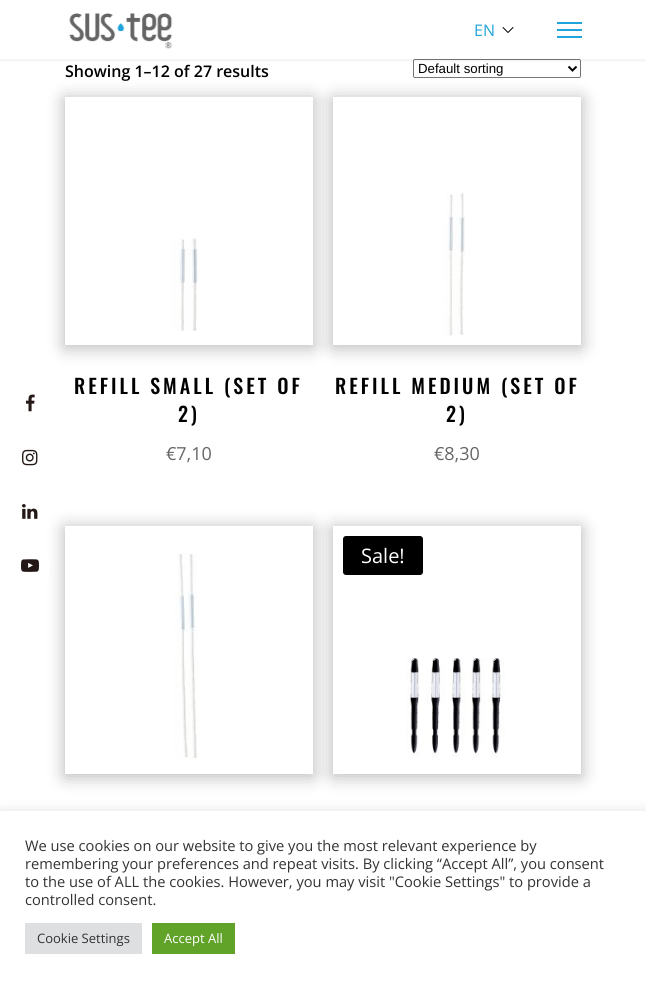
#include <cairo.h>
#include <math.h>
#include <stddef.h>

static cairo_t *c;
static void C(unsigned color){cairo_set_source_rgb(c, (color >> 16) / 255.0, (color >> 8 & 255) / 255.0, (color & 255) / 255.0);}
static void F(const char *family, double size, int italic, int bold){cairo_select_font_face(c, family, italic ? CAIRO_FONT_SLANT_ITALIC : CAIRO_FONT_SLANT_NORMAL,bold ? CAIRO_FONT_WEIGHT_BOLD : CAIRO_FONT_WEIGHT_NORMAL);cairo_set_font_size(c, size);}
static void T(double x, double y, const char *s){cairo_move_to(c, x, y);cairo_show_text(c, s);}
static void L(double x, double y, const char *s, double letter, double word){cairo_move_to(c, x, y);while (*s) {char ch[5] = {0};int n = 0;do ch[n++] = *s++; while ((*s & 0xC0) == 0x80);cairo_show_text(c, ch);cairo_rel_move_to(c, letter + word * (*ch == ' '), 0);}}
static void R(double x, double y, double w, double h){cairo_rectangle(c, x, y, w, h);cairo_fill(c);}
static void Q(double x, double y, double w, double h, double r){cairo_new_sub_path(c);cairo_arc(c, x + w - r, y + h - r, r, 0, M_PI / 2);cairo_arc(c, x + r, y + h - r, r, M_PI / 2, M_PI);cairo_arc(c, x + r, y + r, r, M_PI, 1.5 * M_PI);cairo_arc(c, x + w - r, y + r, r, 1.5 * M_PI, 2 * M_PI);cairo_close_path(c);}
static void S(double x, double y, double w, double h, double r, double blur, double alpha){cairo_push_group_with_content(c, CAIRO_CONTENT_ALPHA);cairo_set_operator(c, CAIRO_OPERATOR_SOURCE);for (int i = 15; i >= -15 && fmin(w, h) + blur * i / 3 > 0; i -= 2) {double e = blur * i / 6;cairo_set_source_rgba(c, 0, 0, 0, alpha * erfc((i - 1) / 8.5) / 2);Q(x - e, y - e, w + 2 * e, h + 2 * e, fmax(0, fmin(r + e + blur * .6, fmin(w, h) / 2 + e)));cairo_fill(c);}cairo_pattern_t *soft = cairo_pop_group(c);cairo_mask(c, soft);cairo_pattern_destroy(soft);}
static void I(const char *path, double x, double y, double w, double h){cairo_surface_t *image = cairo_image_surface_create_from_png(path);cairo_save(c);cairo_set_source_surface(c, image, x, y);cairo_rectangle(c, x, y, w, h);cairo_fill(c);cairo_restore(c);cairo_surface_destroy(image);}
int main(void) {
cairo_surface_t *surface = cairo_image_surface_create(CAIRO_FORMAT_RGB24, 646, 984);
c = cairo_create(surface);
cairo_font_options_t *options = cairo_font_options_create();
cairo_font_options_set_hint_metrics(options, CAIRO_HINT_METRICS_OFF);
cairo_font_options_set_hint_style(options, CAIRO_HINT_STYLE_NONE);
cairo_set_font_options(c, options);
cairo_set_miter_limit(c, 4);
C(0xffffff);
cairo_paint(c);
Q(413.5,59.5,167,18,1.5);
C(0x767676);
cairo_set_line_width(c,1);
cairo_stroke(c);
cairo_new_path(c);
cairo_move_to(c,568.5,66.5);
cairo_line_to(c,572.5,70.5);
cairo_line_to(c,576.5,66.5);
C(0x000000);
cairo_set_line_width(c,2);
cairo_stroke(c);
cairo_save(c);
cairo_rectangle(c,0,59,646,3);
cairo_clip(c);
C(0x000000);
S(0,0,646,59,0,3.5,.1);
cairo_restore(c);
I("1.png",69,13,104,36);
F("Open Sans",16,0,0);
C(0x21a4db);
T(474,36,"EN");
I("2.png",502,27,12,6);
R(557,22,25,2);
R(557,29,25,2);
R(557,36,25,2);
I("3.png",25,394,10,18);
I("4.png",22,449,16,17);
cairo_save(c);
cairo_set_fill_rule(c,CAIRO_FILL_RULE_EVEN_ODD);
cairo_new_path(c);
cairo_move_to(c,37,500);
cairo_line_to(c,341,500);
cairo_line_to(c,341,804);
cairo_line_to(c,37,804);
cairo_close_path(c);
cairo_move_to(c,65,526);
cairo_line_to(c,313,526);
cairo_line_to(c,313,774);
cairo_line_to(c,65,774);
cairo_close_path(c);
cairo_clip(c);
C(0x000000);
S(65,528,248,248,0,9,.3);
cairo_restore(c);
I("5.png",22,504,16,15);
C(0xffffff);
cairo_arc(c,30,566,20,0,2 * M_PI);
cairo_fill(c);
I("6.png",21,559,18,13);
F("Open Sans SemiBold",16,0,0);
C(0x000000);
T(65,77,"Showing 1–12 of 27 results");
F("Liberation Sans",13.25,0,0);
T(418,73,"Default sorting");
cairo_save(c);
cairo_set_fill_rule(c,CAIRO_FILL_RULE_EVEN_ODD);
cairo_new_path(c);
cairo_move_to(c,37,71);
cairo_line_to(c,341,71);
cairo_line_to(c,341,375);
cairo_line_to(c,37,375);
cairo_close_path(c);
cairo_move_to(c,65,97);
cairo_line_to(c,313,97);
cairo_line_to(c,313,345);
cairo_line_to(c,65,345);
cairo_close_path(c);
cairo_clip(c);
C(0x000000);
S(65,99,248,248,0,9,.3);
cairo_restore(c);
I("7.png",171,238,27,93);
F("Oswald Medium",20,0,0);
L(74,394,"REFILL SMALL (SET OF",3,0);
L(178,422,"2)",3,0);
F("Open Sans",18,0,0);
C(0x666666);
T(166,460,"€7,10");
cairo_save(c);
cairo_set_fill_rule(c,CAIRO_FILL_RULE_EVEN_ODD);
cairo_new_path(c);
cairo_move_to(c,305,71);
cairo_line_to(c,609,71);
cairo_line_to(c,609,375);
cairo_line_to(c,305,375);
cairo_close_path(c);
cairo_move_to(c,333,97);
cairo_line_to(c,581,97);
cairo_line_to(c,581,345);
cairo_line_to(c,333,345);
cairo_close_path(c);
cairo_clip(c);
C(0x000000);
S(333,99,248,248,0,9,.3);
cairo_restore(c);
I("8.png",444,192,21,144);
F("Oswald Medium",20,0,0);
C(0x000000);
L(335,394,"REFILL MEDIUM (SET OF",3,0);
L(446,422,"2)",3,0);
F("Open Sans",18,0,0);
C(0x666666);
T(434,460,"€8,30");
I("9.png",174,553,23,206);
cairo_save(c);
cairo_set_fill_rule(c,CAIRO_FILL_RULE_EVEN_ODD);
cairo_new_path(c);
cairo_move_to(c,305,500);
cairo_line_to(c,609,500);
cairo_line_to(c,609,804);
cairo_line_to(c,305,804);
cairo_close_path(c);
cairo_move_to(c,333,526);
cairo_line_to(c,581,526);
cairo_line_to(c,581,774);
cairo_line_to(c,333,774);
cairo_close_path(c);
cairo_clip(c);
C(0x000000);
S(333,528,248,248,0,9,.3);
cairo_restore(c);
I("10.png",406,658,99,100);
C(0x000000);
Q(343,536,80,39,3);
cairo_fill(c);
F("Open Sans",20,0,0);
C(0xffffff);
T(361,563,"Sale!");
C(0xacabab);
S(0,810,646,173,0,5,.3);
C(0xffffff);
R(0,811,646,173);
F("Open Sans",14.65,0,0);
C(0x333333);
T(25,851,"We use cookies on our website to give you the most relevant experience by");
T(25,869,"remembering your preferences and repeat visits. By clicking “Accept All”, you consent");
T(25,887,"to the use of ALL the cookies. However, you may visit \"Cookie Settings\" to provide a");
T(25,905,"controlled consent.");
C(0xdedfe0);
R(25,923,117,31);
F("Open Sans",13,0,0);
C(0x333333);
T(37,943,"Cookie Settings");
C(0x61a229);
R(152,923,83,31);
C(0xffffff);
T(164,943,"Accept All");
cairo_surface_write_to_png(surface, "o.png");
cairo_font_options_destroy(options);
cairo_destroy(c);
cairo_surface_destroy(surface);
return 0;
}
